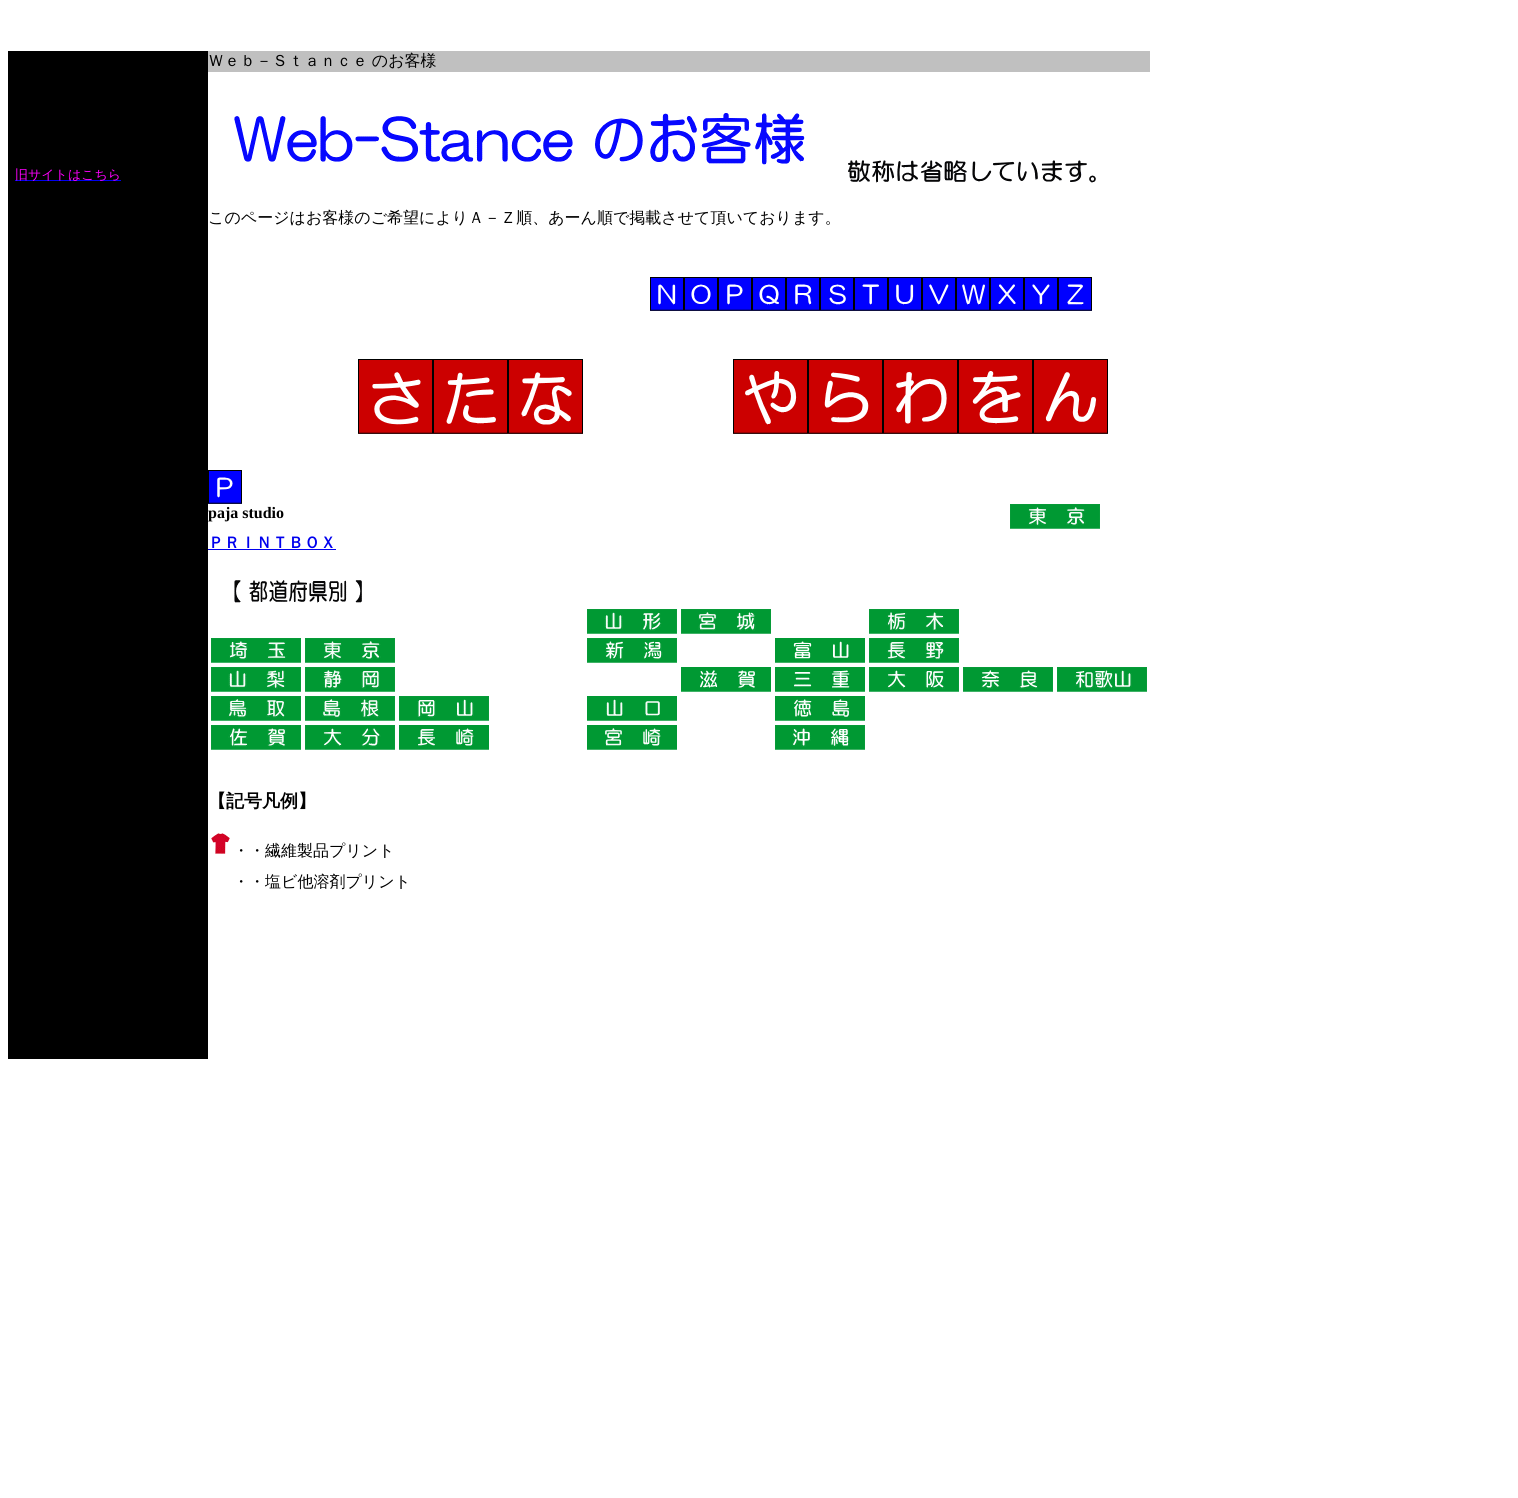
#include <cairo.h>
#include <math.h>
#include <stddef.h>

static cairo_t *c;
static void C(unsigned color){cairo_set_source_rgb(c, (color >> 16) / 255.0, (color >> 8 & 255) / 255.0, (color & 255) / 255.0);}
static void F(const char *family, double size, int italic, int bold){cairo_select_font_face(c, family, italic ? CAIRO_FONT_SLANT_ITALIC : CAIRO_FONT_SLANT_NORMAL,bold ? CAIRO_FONT_WEIGHT_BOLD : CAIRO_FONT_WEIGHT_NORMAL);cairo_set_font_size(c, size);}
static void T(double x, double y, const char *s){cairo_move_to(c, x, y);cairo_show_text(c, s);}
static void L(double x, double y, const char *s, double letter, double word){cairo_move_to(c, x, y);while (*s) {char ch[5] = {0};int n = 0;do ch[n++] = *s++; while ((*s & 0xC0) == 0x80);cairo_show_text(c, ch);cairo_rel_move_to(c, letter + word * (*ch == ' '), 0);}}
static void R(double x, double y, double w, double h){cairo_rectangle(c, x, y, w, h);cairo_fill(c);}
static void I(const char *path, double x, double y, double w, double h){cairo_surface_t *image = cairo_image_surface_create_from_png(path);cairo_save(c);cairo_set_source_surface(c, image, x, y);cairo_rectangle(c, x, y, w, h);cairo_fill(c);cairo_restore(c);cairo_surface_destroy(image);}
int main(void) {
cairo_surface_t *surface = cairo_image_surface_create(CAIRO_FORMAT_RGB24, 1518, 1498);
c = cairo_create(surface);
cairo_font_options_t *options = cairo_font_options_create();
cairo_font_options_set_hint_metrics(options, CAIRO_HINT_METRICS_OFF);
cairo_font_options_set_hint_style(options, CAIRO_HINT_STYLE_NONE);
cairo_set_font_options(c, options);
cairo_set_miter_limit(c, 4);
C(0xffffff);
cairo_paint(c);
C(0x000000);
R(8,51,200,1008);
C(0x0000ee);
R(15,180,106,1);
F("WenQuanYi Zen Hei Medium",13,0,0);
C(0xff00ff);
T(15,179,"旧サイトはこちら");
C(0xc0c0c0);
R(208,51,942,21);
F("WenQuanYi Zen Hei Medium",16,0,0);
C(0x000000);
L(208,66,"Ｗｅｂ－Ｓｔａｎｃｅ のお客様",0,-1);
I("1.png",234,113,862,70);
T(208,223,"このページはお客様のご希望によりＡ－Ｚ順、あーん順で掲載させて頂いております。");
I("2.png",650,277,34,34);
I("3.png",684,277,34,34);
I("4.png",718,277,34,34);
I("5.png",752,277,34,34);
I("6.png",786,277,34,34);
I("7.png",820,277,34,34);
I("8.png",854,277,34,34);
I("9.png",888,277,34,34);
I("10.png",922,277,34,34);
I("11.png",956,277,34,34);
I("12.png",990,277,34,34);
I("13.png",1024,277,34,34);
I("14.png",1058,277,34,34);
I("15.png",358,359,75,75);
I("16.png",433,359,75,75);
I("17.png",508,359,75,75);
I("18.png",733,359,75,75);
I("19.png",808,359,75,75);
I("20.png",883,359,75,75);
I("21.png",958,359,75,75);
I("22.png",1033,359,75,75);
I("4.png",208,470,34,34);
F("Liberation Serif",16,0,1);
T(208,518,"paja studio");
I("23.png",1010,504,90,25);
F("WenQuanYi Zen Hei",16,0,1);
C(0x0000ee);
T(208,548,"ＰＲＩＮＴＢＯＸ");
R(208,549,128,1);
I("24.png",234,580,128,23);
I("25.png",587,609,90,25);
I("26.png",681,609,90,25);
I("27.png",869,609,90,25);
I("28.png",211,638,90,25);
I("23.png",305,638,90,25);
I("29.png",587,638,90,25);
I("30.png",775,638,90,25);
I("31.png",869,638,90,25);
I("32.png",211,667,90,25);
I("33.png",305,667,90,25);
I("34.png",681,667,90,25);
I("35.png",775,667,90,25);
I("36.png",869,667,90,25);
I("37.png",963,667,90,25);
I("38.png",1057,667,90,25);
I("39.png",211,696,90,25);
I("40.png",305,696,90,25);
I("41.png",399,696,90,25);
I("42.png",587,696,90,25);
I("43.png",775,696,90,25);
I("44.png",211,725,90,25);
I("45.png",305,725,90,25);
I("46.png",399,725,90,25);
I("47.png",587,725,90,25);
I("48.png",775,725,90,25);
F("WenQuanYi Zen Hei",18,0,1);
C(0x000000);
T(208,807,"【記号凡例】");
I("49.png",211,833,19,21);
F("WenQuanYi Zen Hei Medium",16,0,0);
T(233,856,"・・繊維製品プリント");
T(233,887,"・・塩ビ他溶剤プリント");
cairo_surface_write_to_png(surface, "o.png");
cairo_font_options_destroy(options);
cairo_destroy(c);
cairo_surface_destroy(surface);
return 0;
}
